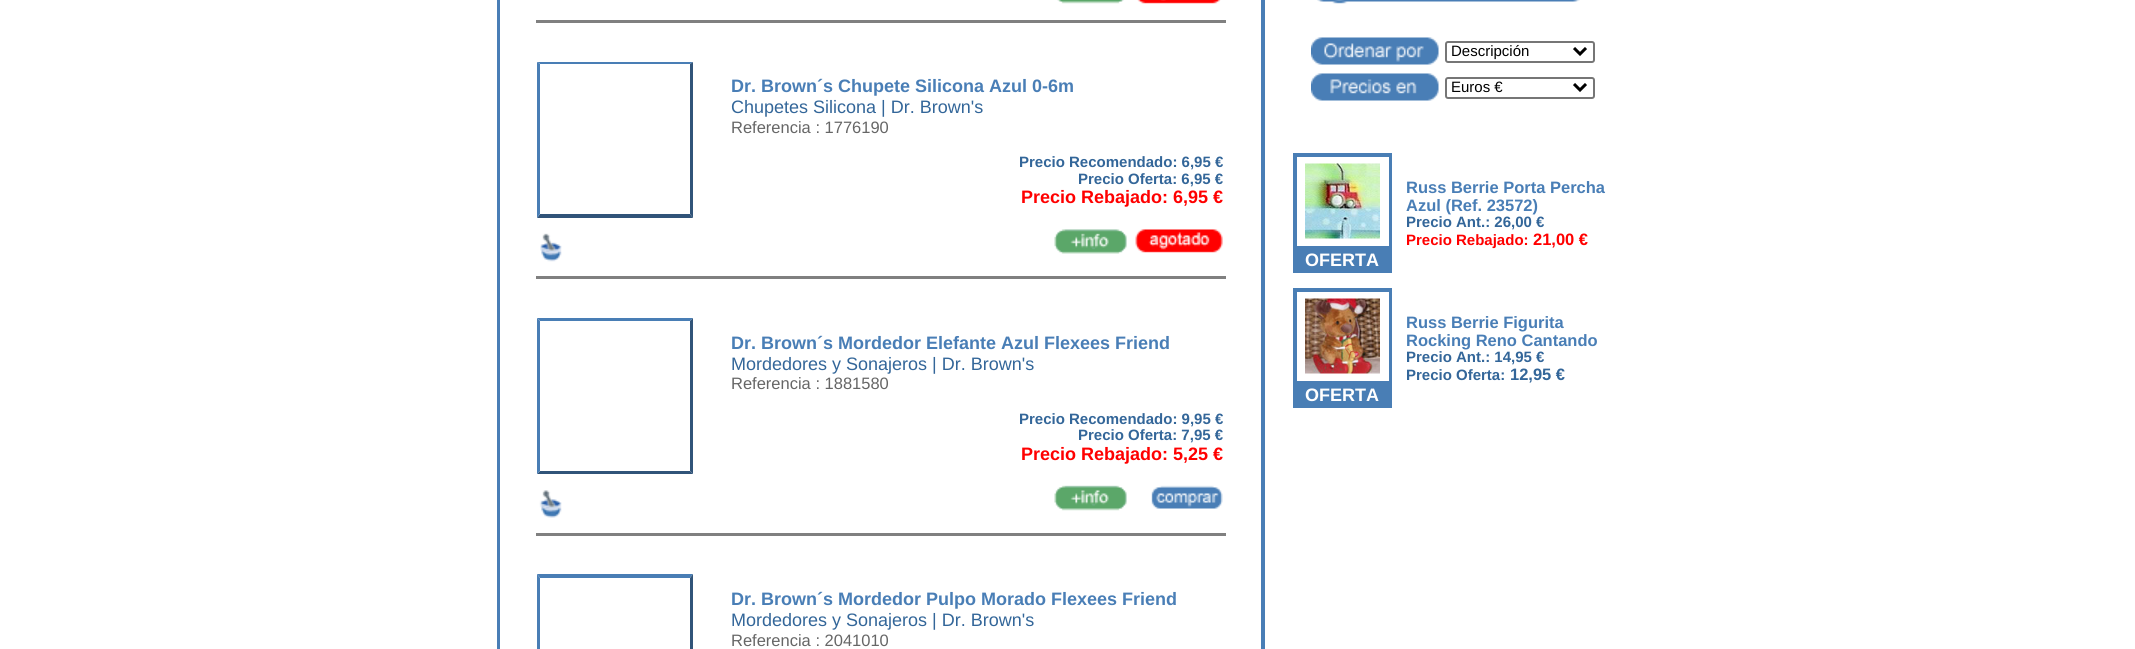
#include <cairo.h>
#include <math.h>
#include <stddef.h>

static cairo_t *c;
static void C(unsigned color){cairo_set_source_rgb(c, (color >> 16) / 255.0, (color >> 8 & 255) / 255.0, (color & 255) / 255.0);}
static void F(const char *family, double size, int italic, int bold){cairo_select_font_face(c, family, italic ? CAIRO_FONT_SLANT_ITALIC : CAIRO_FONT_SLANT_NORMAL,bold ? CAIRO_FONT_WEIGHT_BOLD : CAIRO_FONT_WEIGHT_NORMAL);cairo_set_font_size(c, size);}
static void T(double x, double y, const char *s){cairo_move_to(c, x, y);cairo_show_text(c, s);}
static void R(double x, double y, double w, double h){cairo_rectangle(c, x, y, w, h);cairo_fill(c);}
static void Q(double x, double y, double w, double h, double r){cairo_new_sub_path(c);cairo_arc(c, x + w - r, y + h - r, r, 0, M_PI / 2);cairo_arc(c, x + r, y + h - r, r, M_PI / 2, M_PI);cairo_arc(c, x + r, y + r, r, M_PI, 1.5 * M_PI);cairo_arc(c, x + w - r, y + r, r, 1.5 * M_PI, 2 * M_PI);cairo_close_path(c);}
static void I(const char *path, double x, double y, double w, double h){cairo_surface_t *image = cairo_image_surface_create_from_png(path);cairo_save(c);cairo_set_source_surface(c, image, x, y);cairo_rectangle(c, x, y, w, h);cairo_fill(c);cairo_restore(c);cairo_surface_destroy(image);}
int main(void) {
cairo_surface_t *surface = cairo_image_surface_create(CAIRO_FORMAT_RGB24, 2135, 649);
c = cairo_create(surface);
cairo_font_options_t *options = cairo_font_options_create();
cairo_font_options_set_hint_metrics(options, CAIRO_HINT_METRICS_OFF);
cairo_font_options_set_hint_style(options, CAIRO_HINT_STYLE_NONE);
cairo_set_font_options(c, options);
cairo_set_miter_limit(c, 4);
C(0xffffff);
cairo_paint(c);
cairo_rectangle(c,498,-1,766,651);
C(0x497eb6);
cairo_stroke(c);
cairo_rectangle(c,499,-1,763,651);
cairo_stroke(c);
I("1.png",1057,0,67,4);
I("2.png",1137,0,84,4);
C(0x808080);
R(536,20,690,3);
C(0x497eb5);
cairo_new_path(c);
cairo_move_to(c,537,62);
cairo_line_to(c,693,62);
cairo_line_to(c,690,64);
cairo_line_to(c,540,64);
cairo_close_path(c);
cairo_fill(c);
C(0x315479);
cairo_new_path(c);
cairo_move_to(c,693,62);
cairo_line_to(c,693,218);
cairo_line_to(c,690,214);
cairo_line_to(c,690,64);
cairo_close_path(c);
cairo_fill(c);
cairo_new_path(c);
cairo_move_to(c,693,218);
cairo_line_to(c,537,218);
cairo_line_to(c,540,214);
cairo_line_to(c,690,214);
cairo_close_path(c);
cairo_fill(c);
C(0x497eb5);
cairo_new_path(c);
cairo_move_to(c,537,218);
cairo_line_to(c,537,62);
cairo_line_to(c,540,64);
cairo_line_to(c,540,214);
cairo_close_path(c);
cairo_fill(c);
I("3.png",540,233,22,29);
F("Liberation Sans",18,0,1);
C(0x497eb6);
T(731,92,"Dr. Brown´s Chupete Silicona Azul 0-6m");
F("Liberation Sans",18,0,0);
C(0x336699);
T(731,113,"Chupetes Silicona | Dr. Brown's");
F("Liberation Sans",16.5,0,0);
C(0x666666);
T(731,133,"Referencia : 1776190");
F("Liberation Sans",15,0,1);
C(0x336699);
T(1019,167,"Precio Recomendado: 6,95 €");
T(1078,184,"Precio Oferta: 6,95 €");
F("Liberation Sans",18,0,1);
C(0xff0000);
T(1021,203,"Precio Rebajado: 6,95 €");
I("4.png",1054,229,73,25);
I("5.png",1135,229,88,24);
C(0x808080);
R(536,276,690,3);
C(0x497eb5);
cairo_new_path(c);
cairo_move_to(c,537,318);
cairo_line_to(c,693,318);
cairo_line_to(c,690,321);
cairo_line_to(c,540,321);
cairo_close_path(c);
cairo_fill(c);
C(0x315479);
cairo_new_path(c);
cairo_move_to(c,693,318);
cairo_line_to(c,693,474);
cairo_line_to(c,690,471);
cairo_line_to(c,690,321);
cairo_close_path(c);
cairo_fill(c);
cairo_new_path(c);
cairo_move_to(c,693,474);
cairo_line_to(c,537,474);
cairo_line_to(c,540,471);
cairo_line_to(c,690,471);
cairo_close_path(c);
cairo_fill(c);
C(0x497eb5);
cairo_new_path(c);
cairo_move_to(c,537,474);
cairo_line_to(c,537,318);
cairo_line_to(c,540,321);
cairo_line_to(c,540,471);
cairo_close_path(c);
cairo_fill(c);
I("6.png",539,490,23,28);
C(0x497eb6);
T(731,349,"Dr. Brown´s Mordedor Elefante Azul Flexees Friend");
F("Liberation Sans",18,0,0);
C(0x336699);
T(731,370,"Mordedores y Sonajeros | Dr. Brown's");
F("Liberation Sans",16.5,0,0);
C(0x666666);
T(731,389,"Referencia : 1881580");
F("Liberation Sans",15,0,1);
C(0x336699);
T(1019,424,"Precio Recomendado: 9,95 €");
T(1078,440,"Precio Oferta: 7,95 €");
F("Liberation Sans",18,0,1);
C(0xff0000);
T(1021,460,"Precio Rebajado: 5,25 €");
I("7.png",1054,485,73,26);
I("8.png",1151,485,72,24);
C(0x808080);
R(536,533,690,3);
C(0x497eb5);
cairo_new_path(c);
cairo_move_to(c,537,574);
cairo_line_to(c,693,574);
cairo_line_to(c,690,578);
cairo_line_to(c,540,578);
cairo_close_path(c);
cairo_fill(c);
C(0x315479);
cairo_new_path(c);
cairo_move_to(c,693,574);
cairo_line_to(c,693,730);
cairo_line_to(c,690,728);
cairo_line_to(c,690,578);
cairo_close_path(c);
cairo_fill(c);
C(0x497eb5);
cairo_new_path(c);
cairo_move_to(c,537,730);
cairo_line_to(c,537,574);
cairo_line_to(c,540,578);
cairo_line_to(c,540,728);
cairo_close_path(c);
cairo_fill(c);
C(0x497eb6);
T(731,605,"Dr. Brown´s Mordedor Pulpo Morado Flexees Friend");
F("Liberation Sans",18,0,0);
C(0x336699);
T(731,626,"Mordedores y Sonajeros | Dr. Brown's");
F("Liberation Sans",16.5,0,0);
C(0x666666);
T(731,646,"Referencia : 2041010");
I("9.png",1317,0,263,4);
I("10.png",1311,37,128,28);
Q(1446,42,148,20,2);
C(0x767676);
cairo_stroke(c);
cairo_new_path(c);
cairo_move_to(c,1574,48);
cairo_line_to(c,1580,54);
cairo_line_to(c,1586,48);
C(0x000000);
cairo_set_line_width(c,3);
cairo_stroke(c);
F("Liberation Sans",15,0,0);
T(1451,56,"Descripción");
I("11.png",1311,73,128,28);
Q(1446,78,148,20,2);
C(0x767676);
cairo_set_line_width(c,2);
cairo_stroke(c);
cairo_new_path(c);
cairo_move_to(c,1574,84);
cairo_line_to(c,1580,90);
cairo_line_to(c,1586,84);
C(0x000000);
cairo_set_line_width(c,3);
cairo_stroke(c);
T(1451,92,"Euros €");
F("Liberation Sans",16.5,0,1);
C(0x497eb6);
T(1406,193,"Russ Berrie Porta Percha");
T(1406,211,"Azul (Ref. 23572)");
F("Liberation Sans",15,0,1);
C(0x336699);
T(1406,227,"Precio Ant.: 26,00 €");
C(0xff0000);
T(1406,245,"Precio Rebajado:");
F("Liberation Sans",16.5,0,1);
T(1533,245,"21,00 €");
cairo_rectangle(c,1294,154,97,118);
C(0x497eb5);
cairo_set_line_width(c,2);
cairo_stroke(c);
cairo_rectangle(c,1296,156,94,91);
cairo_stroke(c);
I("12.png",1305,163,75,76);
R(1295,248,95,23);
F("Liberation Sans",18,0,1);
C(0xffffff);
T(1305,266,"OFERTA");
F("Liberation Sans",16.5,0,1);
C(0x497eb6);
T(1406,328,"Russ Berrie Figurita");
T(1406,346,"Rocking Reno Cantando");
F("Liberation Sans",15,0,1);
C(0x336699);
T(1406,362,"Precio Ant.: 14,95 €");
T(1406,380,"Precio Oferta:");
F("Liberation Sans",16.5,0,1);
T(1510,380,"12,95 €");
cairo_rectangle(c,1294,289,97,118);
C(0x497eb5);
cairo_stroke(c);
cairo_rectangle(c,1296,291,94,91);
cairo_stroke(c);
I("13.png",1305,298,75,76);
R(1295,383,95,23);
F("Liberation Sans",18,0,1);
C(0xffffff);
T(1305,401,"OFERTA");
cairo_surface_write_to_png(surface, "o.png");
cairo_font_options_destroy(options);
cairo_destroy(c);
cairo_surface_destroy(surface);
return 0;
}
